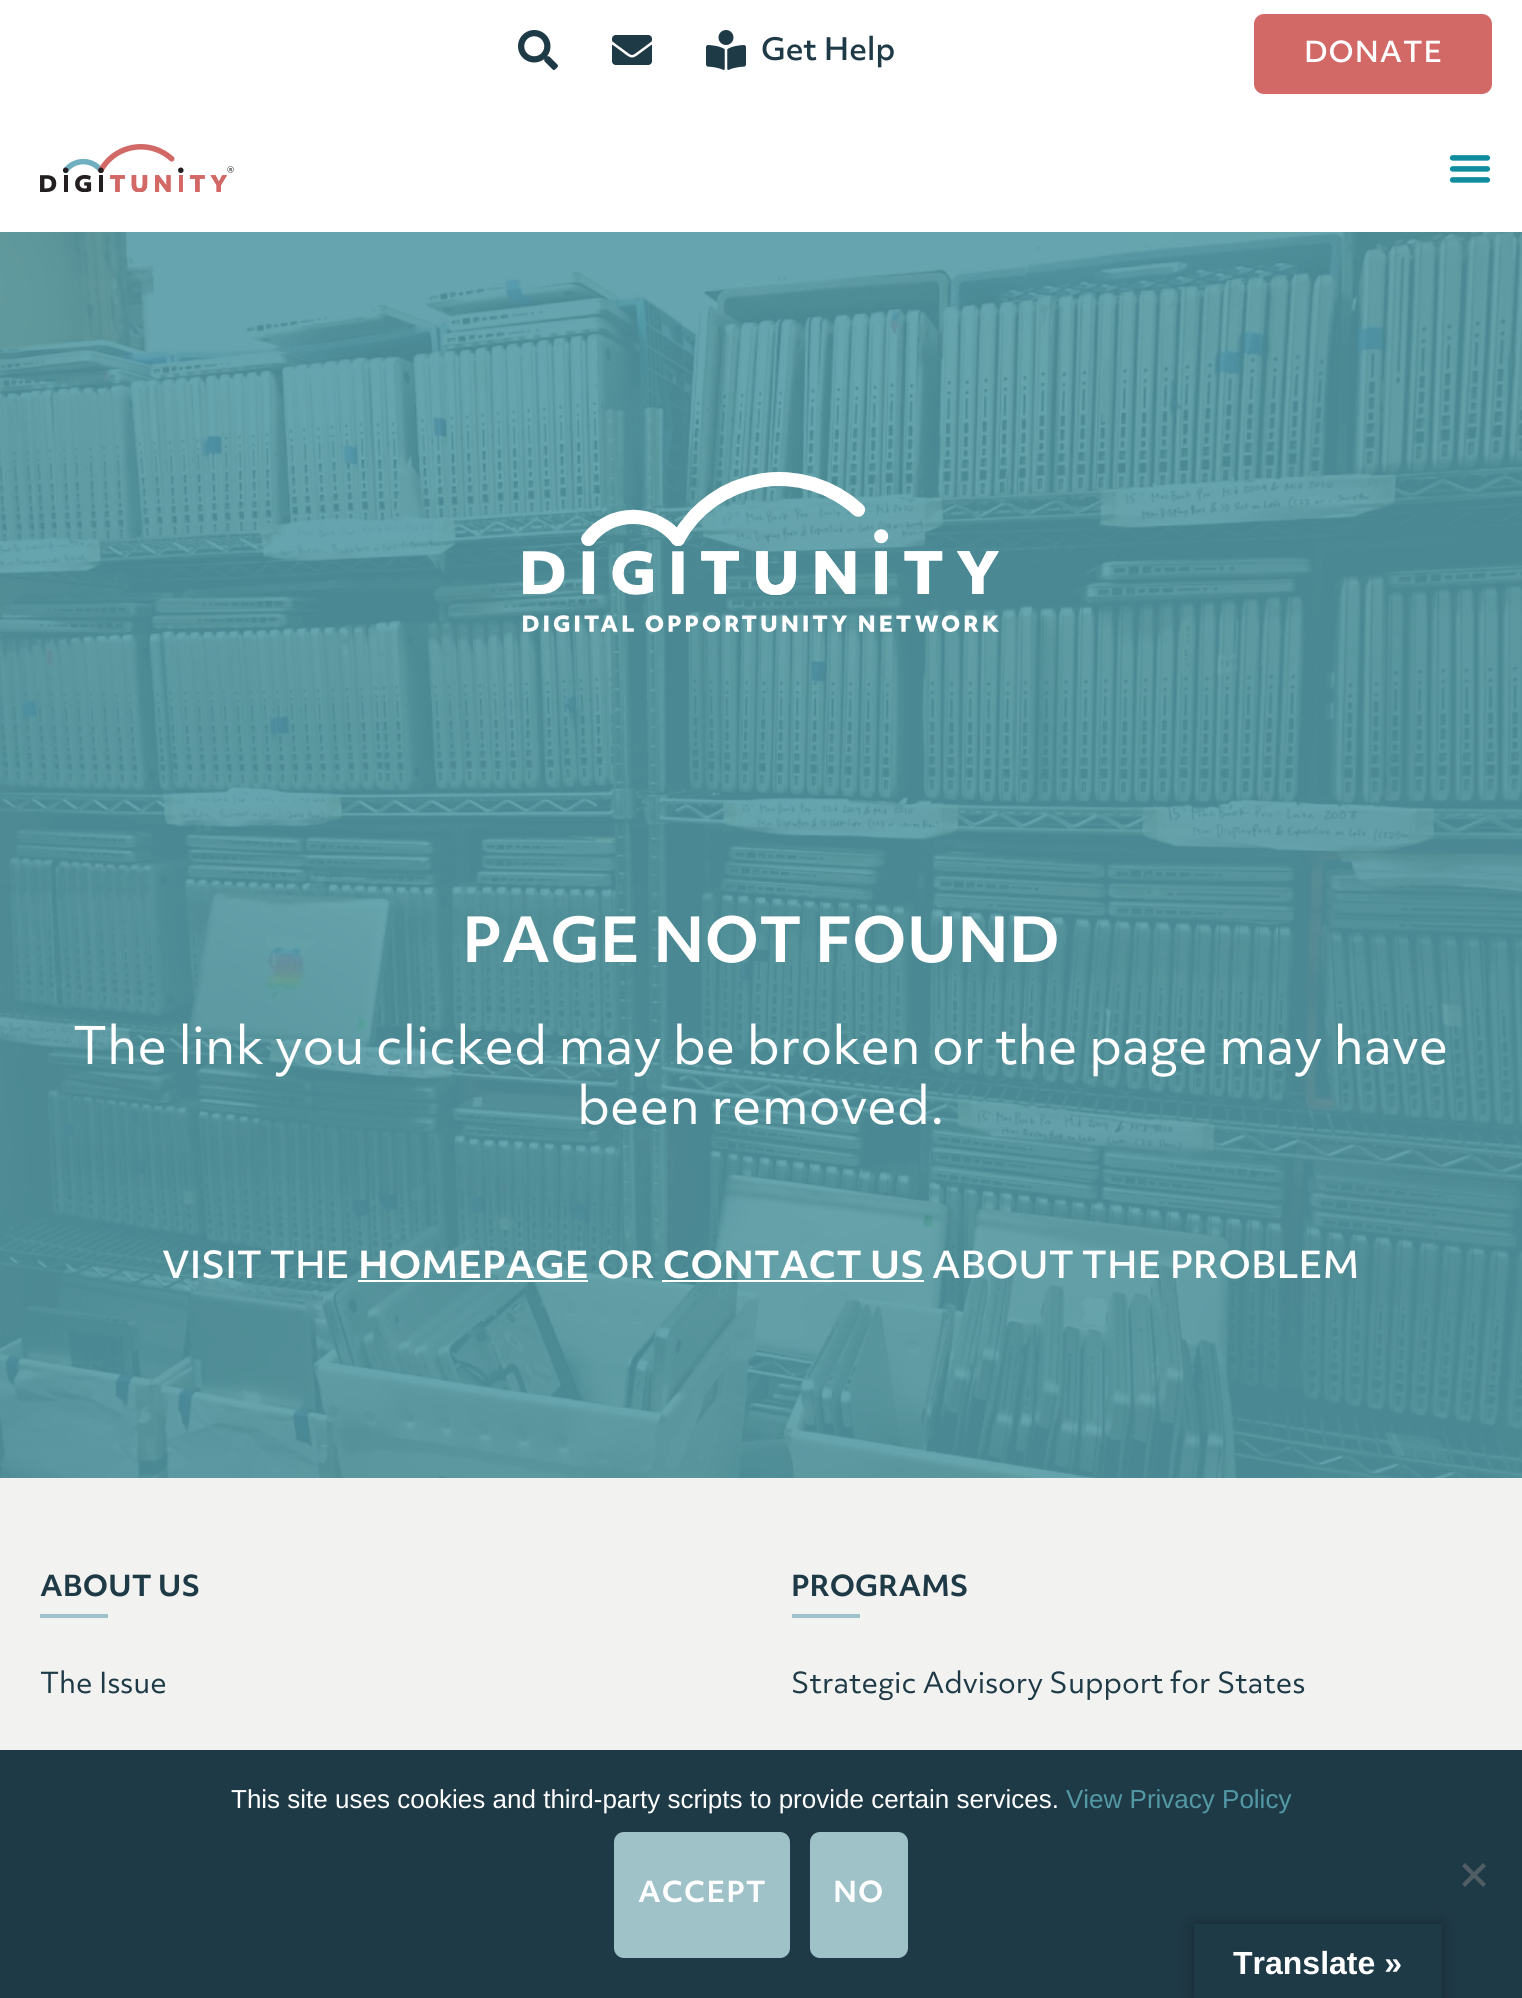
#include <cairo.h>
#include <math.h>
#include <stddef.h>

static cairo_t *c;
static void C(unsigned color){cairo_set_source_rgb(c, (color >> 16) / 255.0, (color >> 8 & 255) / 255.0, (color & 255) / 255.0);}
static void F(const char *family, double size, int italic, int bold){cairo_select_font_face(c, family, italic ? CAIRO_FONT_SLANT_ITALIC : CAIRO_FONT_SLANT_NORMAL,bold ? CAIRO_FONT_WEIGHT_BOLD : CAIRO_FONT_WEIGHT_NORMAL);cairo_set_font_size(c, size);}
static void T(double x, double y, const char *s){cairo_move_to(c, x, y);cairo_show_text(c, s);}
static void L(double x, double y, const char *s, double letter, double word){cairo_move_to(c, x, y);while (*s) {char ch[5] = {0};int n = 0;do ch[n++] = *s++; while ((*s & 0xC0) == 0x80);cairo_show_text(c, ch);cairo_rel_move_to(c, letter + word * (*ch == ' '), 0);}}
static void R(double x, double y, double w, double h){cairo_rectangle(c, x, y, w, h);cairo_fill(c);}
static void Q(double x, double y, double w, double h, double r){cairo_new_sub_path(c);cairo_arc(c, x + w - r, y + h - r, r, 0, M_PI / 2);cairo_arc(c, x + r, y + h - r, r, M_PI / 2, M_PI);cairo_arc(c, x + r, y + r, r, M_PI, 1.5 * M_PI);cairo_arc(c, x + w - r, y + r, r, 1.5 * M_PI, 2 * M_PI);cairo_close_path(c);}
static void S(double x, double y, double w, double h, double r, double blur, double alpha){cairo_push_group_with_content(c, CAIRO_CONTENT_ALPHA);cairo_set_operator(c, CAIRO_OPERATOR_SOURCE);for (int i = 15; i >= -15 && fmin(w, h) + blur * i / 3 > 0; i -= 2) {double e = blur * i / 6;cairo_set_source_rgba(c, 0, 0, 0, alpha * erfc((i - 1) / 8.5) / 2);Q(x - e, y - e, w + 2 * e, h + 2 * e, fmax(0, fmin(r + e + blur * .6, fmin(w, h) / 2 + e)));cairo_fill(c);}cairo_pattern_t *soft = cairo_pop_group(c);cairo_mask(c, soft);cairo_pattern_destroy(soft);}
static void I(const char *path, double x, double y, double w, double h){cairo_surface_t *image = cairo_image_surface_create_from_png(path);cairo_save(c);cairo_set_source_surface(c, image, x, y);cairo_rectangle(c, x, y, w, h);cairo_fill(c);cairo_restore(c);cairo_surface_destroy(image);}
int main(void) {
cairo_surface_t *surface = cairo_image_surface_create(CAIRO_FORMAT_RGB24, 1522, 1998);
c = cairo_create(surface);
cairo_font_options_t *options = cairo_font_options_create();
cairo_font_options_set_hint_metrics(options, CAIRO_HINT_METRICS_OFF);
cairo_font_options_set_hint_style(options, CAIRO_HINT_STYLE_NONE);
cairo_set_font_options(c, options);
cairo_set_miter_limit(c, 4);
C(0xffffff);
cairo_paint(c);
I("1.png",518,30,40,40);
I("2.png",612,35,40,30);
I("3.png",706,30,40,40);
F("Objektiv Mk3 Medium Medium",30,0,0);
C(0x1f3a47);
T(761,60,"Get Help");
C(0xd26966);
Q(1254,14,238,80,10);
cairo_fill(c);
F("Objektiv Mk3 Medium Medium",28,0,0);
C(0xffffff);
L(1304,62,"DONATE",1,0);
I("4.png",40,144,194,48);
I("5.png",1449,155,42,28);
I("6.png",0,232,1522,1246);
I("7.png",523,472,476,160);
F("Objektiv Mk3",60,0,1);
T(462,962,"PAGE NOT FOUND");
F("Objektiv Mk3",50,0,0);
T(73,1064,"The link you clicked may be broken or the page may have");
T(577,1124,"been removed.");
F("Objektiv Mk3 Medium Medium",36,0,0);
T(162,1278,"VISIT THE");
F("Objektiv Mk3",36,0,1);
T(358,1278,"HOMEPAGE");
R(358,1280,230,2);
F("Objektiv Mk3 Medium Medium",36,0,0);
T(597,1278,"OR");
F("Objektiv Mk3",36,0,1);
T(663,1278,"CONTACT US");
R(662,1280,262,2);
F("Objektiv Mk3 Medium Medium",36,0,0);
T(932,1278,"ABOUT THE PROBLEM");
C(0xf2f2f0);
R(0,1478,1522,272);
F("Objektiv Mk3",28,0,1);
C(0x1f3a47);
T(40,1596,"ABOUT US");
C(0x9fc2c8);
R(40,1614,68,4);
F("Objektiv Mk3",28,0,0);
C(0x1f3a47);
T(40,1693,"The Issue");
F("Objektiv Mk3",28,0,1);
T(791,1596,"PROGRAMS");
C(0x9fc2c8);
R(792,1614,68,4);
F("Objektiv Mk3",28,0,0);
C(0x1f3a47);
T(791,1693,"Strategic Advisory Support for States");
R(0,1750,1522,248);
F("Liberation Sans",26,0,0);
C(0xffffff);
T(231,1808,"This site uses cookies and third-party scripts to provide certain services.");
C(0x5399a5);
T(1066,1808,"View Privacy Policy");
C(0x505d64);
cairo_new_path(c);
cairo_move_to(c,1483,1863);
cairo_line_to(c,1486,1866);
cairo_line_to(c,1465,1887);
cairo_line_to(c,1462,1884);
cairo_close_path(c);
cairo_fill(c);
cairo_new_path(c);
cairo_move_to(c,1462,1866);
cairo_line_to(c,1465,1863);
cairo_line_to(c,1486,1884);
cairo_line_to(c,1483,1887);
cairo_close_path(c);
cairo_fill(c);
C(0x9fc2c8);
Q(616,1834,172,122,8);
cairo_fill_preserve(c);
cairo_set_line_width(c,4);
cairo_stroke(c);
F("Objektiv Mk3",28,0,1);
C(0xffffff);
L(638,1902,"ACCEPT",1,0);
C(0x9fc2c8);
Q(812,1834,94,122,8);
cairo_fill_preserve(c);
cairo_stroke(c);
C(0xffffff);
L(833,1902,"NO",1,0);
cairo_save(c);
cairo_set_fill_rule(c,CAIRO_FILL_RULE_EVEN_ODD);
cairo_new_path(c);
cairo_move_to(c,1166,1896);
cairo_line_to(c,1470,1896);
cairo_line_to(c,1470,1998);
cairo_line_to(c,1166,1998);
cairo_close_path(c);
cairo_move_to(c,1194,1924);
cairo_line_to(c,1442,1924);
cairo_line_to(c,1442,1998);
cairo_line_to(c,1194,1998);
cairo_close_path(c);
cairo_clip(c);
C(0x000000);
S(1194,1924,248,74,0,9,.3);
cairo_restore(c);
F("Liberation Sans",32,0,1);
T(1233,1974,"Translate »");
cairo_surface_write_to_png(surface, "o.png");
cairo_font_options_destroy(options);
cairo_destroy(c);
cairo_surface_destroy(surface);
return 0;
}
